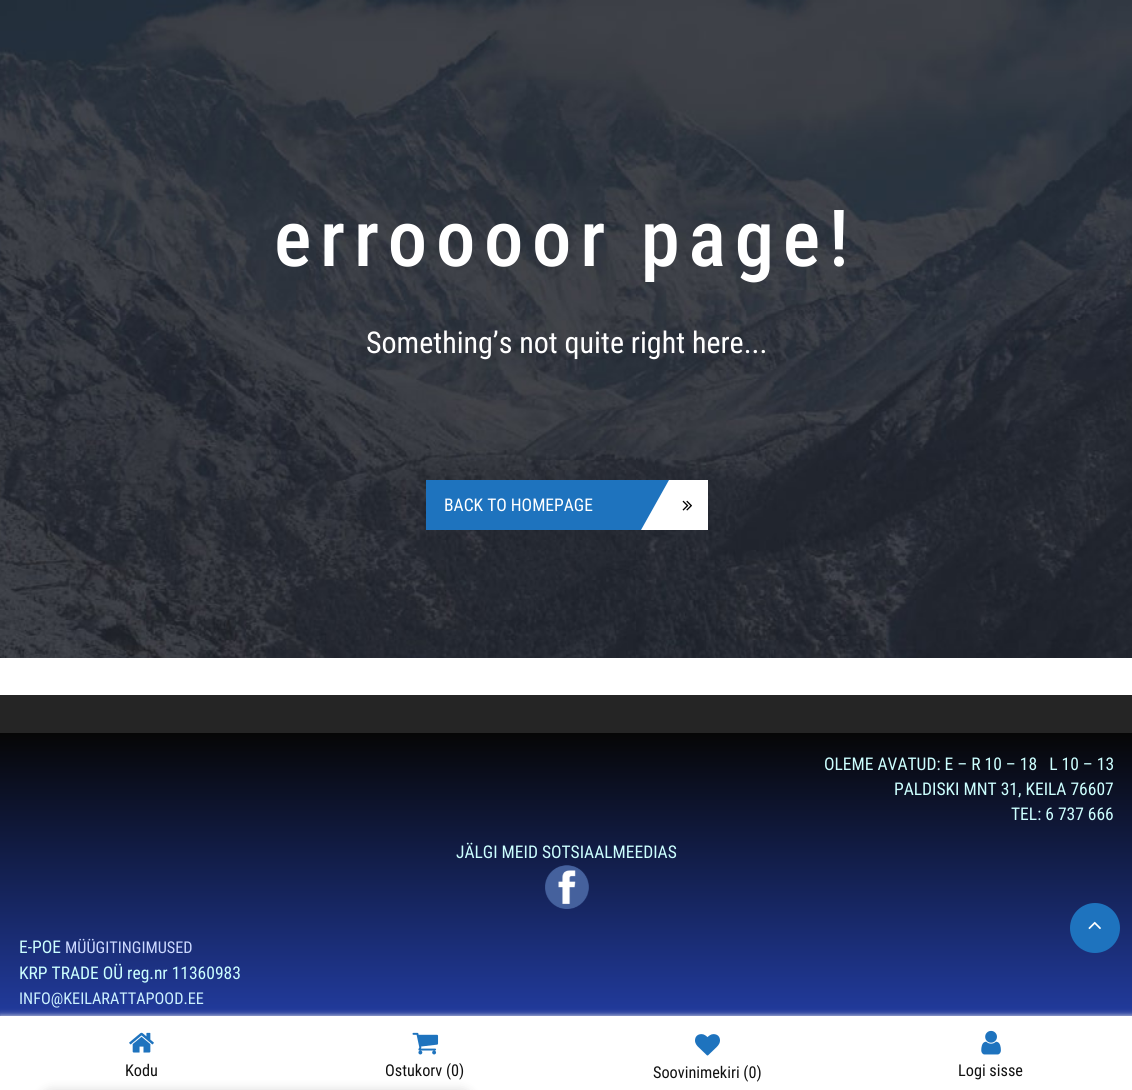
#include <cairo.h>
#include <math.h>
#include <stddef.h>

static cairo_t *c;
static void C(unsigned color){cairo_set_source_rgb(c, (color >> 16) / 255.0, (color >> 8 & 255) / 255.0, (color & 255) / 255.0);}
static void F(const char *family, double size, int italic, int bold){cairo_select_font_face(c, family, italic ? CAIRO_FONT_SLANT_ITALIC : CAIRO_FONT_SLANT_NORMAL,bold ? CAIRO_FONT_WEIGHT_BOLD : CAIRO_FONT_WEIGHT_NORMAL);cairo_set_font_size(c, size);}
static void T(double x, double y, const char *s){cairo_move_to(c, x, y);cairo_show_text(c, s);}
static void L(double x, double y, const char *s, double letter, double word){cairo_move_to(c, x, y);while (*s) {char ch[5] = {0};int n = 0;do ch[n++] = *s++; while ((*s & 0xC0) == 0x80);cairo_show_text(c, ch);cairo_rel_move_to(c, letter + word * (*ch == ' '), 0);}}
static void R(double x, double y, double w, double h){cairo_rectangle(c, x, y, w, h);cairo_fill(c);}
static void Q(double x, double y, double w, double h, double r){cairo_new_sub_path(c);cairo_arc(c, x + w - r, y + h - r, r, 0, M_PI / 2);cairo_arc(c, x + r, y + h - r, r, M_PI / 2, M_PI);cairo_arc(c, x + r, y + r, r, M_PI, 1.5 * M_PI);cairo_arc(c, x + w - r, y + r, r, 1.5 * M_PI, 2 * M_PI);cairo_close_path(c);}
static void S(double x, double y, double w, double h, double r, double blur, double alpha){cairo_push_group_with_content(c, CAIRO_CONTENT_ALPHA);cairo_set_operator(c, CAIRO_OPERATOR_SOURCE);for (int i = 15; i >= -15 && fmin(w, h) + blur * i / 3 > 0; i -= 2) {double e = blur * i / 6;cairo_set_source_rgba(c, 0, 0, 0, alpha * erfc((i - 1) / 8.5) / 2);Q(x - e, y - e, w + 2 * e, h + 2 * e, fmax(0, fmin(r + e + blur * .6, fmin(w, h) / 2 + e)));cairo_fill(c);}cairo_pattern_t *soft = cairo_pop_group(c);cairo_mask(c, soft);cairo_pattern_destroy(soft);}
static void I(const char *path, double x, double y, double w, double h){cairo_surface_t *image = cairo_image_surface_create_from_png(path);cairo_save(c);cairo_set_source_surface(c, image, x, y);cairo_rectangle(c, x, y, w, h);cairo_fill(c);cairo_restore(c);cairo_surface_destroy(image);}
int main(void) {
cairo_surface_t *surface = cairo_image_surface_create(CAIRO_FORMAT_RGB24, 1132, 1090);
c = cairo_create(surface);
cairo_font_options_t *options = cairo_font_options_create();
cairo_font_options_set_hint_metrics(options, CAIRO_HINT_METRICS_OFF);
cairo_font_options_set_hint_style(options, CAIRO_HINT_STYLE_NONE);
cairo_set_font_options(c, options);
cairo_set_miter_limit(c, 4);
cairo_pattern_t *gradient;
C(0xffffff);
cairo_paint(c);
I("1.png",0,0,1132,658);
F("Roboto Condensed Medium",78.75,0,0);
C(0xffffff);
L(274,266,"erroooor page!",8.75,0);
F("Roboto Condensed",30,0,0);
T(366,353,"Something’s not quite right here...");
C(0x1e73be);
R(426,480,243,50);
F("Roboto Condensed",17.5,0,0);
C(0xffffff);
T(444,511,"BACK TO HOMEPAGE");
cairo_new_path(c);
cairo_move_to(c,669,530);
cairo_line_to(c,641,530);
cairo_line_to(c,669,480);
cairo_close_path(c);
cairo_fill(c);
R(669,480,39,50);
I("2.png",682,500,10,11);
C(0x252525);
R(0,695,1132,38);
gradient = cairo_pattern_create_linear(566,733,566,1055);
cairo_pattern_add_color_stop_rgba(gradient,0,0.024,0.024,0.024,1);
cairo_pattern_add_color_stop_rgba(gradient,1,0.145,0.259,0.698,1);
cairo_set_source(c,gradient);
cairo_pattern_destroy(gradient);
R(0,733,1132,283);
C(0xccffff);
T(824,770,"OLEME AVATUD: E – R 10 – 18   L 10 – 13");
T(894,795,"PALDISKI MNT 31, KEILA 76607");
T(1011,820,"TEL: 6 737 666");
T(456,858,"JÄLGI MEID SOTSIAALMEEDIAS");
I("3.png",545,865,44,44);
T(19,953,"E-POE");
F("Roboto Condensed",16.25,0,0);
C(0xccd9ff);
T(65,953,"MÜÜGITINGIMUSED");
F("Roboto Condensed",17.5,0,0);
C(0xccffff);
T(19,979,"KRP TRADE OÜ reg.nr 11360983");
F("Roboto Condensed",16.25,0,0);
C(0xccf1ff);
T(19,1004,"INFO@KEILARATTAPOOD.EE");
C(0x1e73be);
cairo_new_path(c);
cairo_arc(c,1095,928,25,0,2 * M_PI);
cairo_fill(c);
I("4.png",1088,921,13,9);
C(0xf1f1f1);
S(0,1016,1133,74,0,3,1);
C(0xffffff);
R(0,1016,1132,74);
I("5.png",129,1032,25,21);
C(0x111111);
T(125,1076,"Kodu");
I("6.png",412,1032,27,23);
T(385,1076,"Ostukorv (0)");
I("7.png",695,1034,25,22);
T(653,1078,"Soovinimekiri (0)");
I("8.png",981,1030,20,25);
T(958,1076,"Logi sisse");
C(0x000000);
S(38,1090,437,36,19,5.5,.14);
cairo_surface_write_to_png(surface, "o.png");
cairo_font_options_destroy(options);
cairo_destroy(c);
cairo_surface_destroy(surface);
return 0;
}
